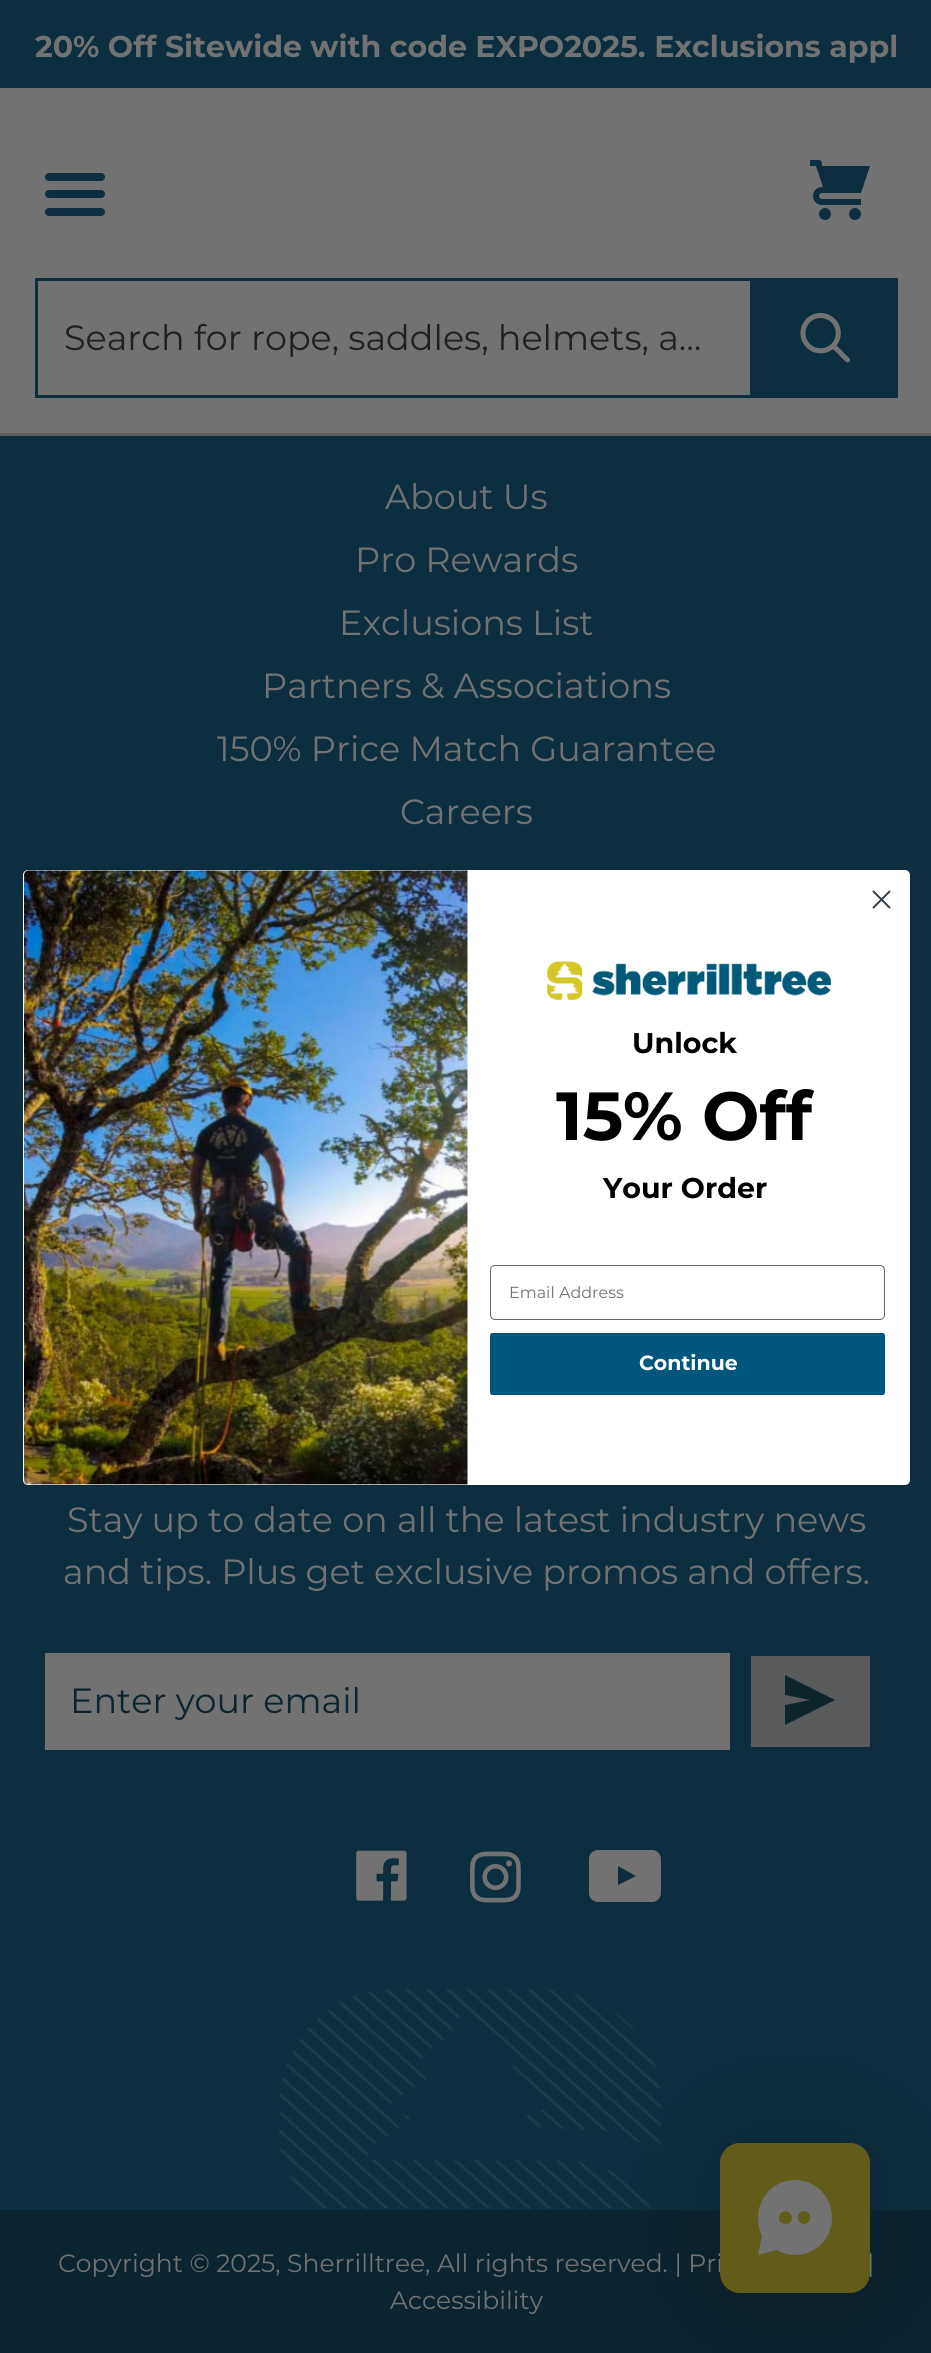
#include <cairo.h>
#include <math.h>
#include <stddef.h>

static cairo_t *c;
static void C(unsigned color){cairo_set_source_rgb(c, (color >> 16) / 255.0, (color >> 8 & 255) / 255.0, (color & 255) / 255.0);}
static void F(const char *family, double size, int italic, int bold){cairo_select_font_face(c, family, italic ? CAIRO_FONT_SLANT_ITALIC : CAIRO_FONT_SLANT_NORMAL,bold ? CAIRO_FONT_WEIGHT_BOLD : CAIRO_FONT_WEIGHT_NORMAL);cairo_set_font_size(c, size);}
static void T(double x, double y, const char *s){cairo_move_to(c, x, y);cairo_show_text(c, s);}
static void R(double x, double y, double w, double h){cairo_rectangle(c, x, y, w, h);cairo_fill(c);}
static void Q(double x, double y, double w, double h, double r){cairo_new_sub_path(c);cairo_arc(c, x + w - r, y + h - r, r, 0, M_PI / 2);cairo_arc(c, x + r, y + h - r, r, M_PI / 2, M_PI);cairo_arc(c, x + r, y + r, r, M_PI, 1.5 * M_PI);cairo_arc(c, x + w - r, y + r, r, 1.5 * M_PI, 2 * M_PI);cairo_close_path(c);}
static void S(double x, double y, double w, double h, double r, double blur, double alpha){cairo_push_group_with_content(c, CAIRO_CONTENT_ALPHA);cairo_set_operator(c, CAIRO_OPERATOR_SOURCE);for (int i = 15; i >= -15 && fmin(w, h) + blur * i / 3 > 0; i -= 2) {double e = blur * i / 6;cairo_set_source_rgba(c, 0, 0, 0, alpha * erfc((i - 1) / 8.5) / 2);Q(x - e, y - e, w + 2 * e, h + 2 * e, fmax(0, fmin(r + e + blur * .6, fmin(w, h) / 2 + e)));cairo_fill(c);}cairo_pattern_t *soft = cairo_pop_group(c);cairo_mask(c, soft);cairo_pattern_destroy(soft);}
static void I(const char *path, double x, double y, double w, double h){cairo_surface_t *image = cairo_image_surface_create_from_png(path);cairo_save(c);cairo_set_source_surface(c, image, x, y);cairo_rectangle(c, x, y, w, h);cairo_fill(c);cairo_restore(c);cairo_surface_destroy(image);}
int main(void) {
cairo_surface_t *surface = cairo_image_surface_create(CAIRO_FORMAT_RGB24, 931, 2353);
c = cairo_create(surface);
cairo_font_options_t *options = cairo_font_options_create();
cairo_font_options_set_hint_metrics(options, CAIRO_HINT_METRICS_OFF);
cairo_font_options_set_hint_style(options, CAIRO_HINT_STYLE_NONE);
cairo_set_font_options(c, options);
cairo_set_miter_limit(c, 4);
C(0x0c2430);
cairo_paint(c);
C(0x0c2e3e);
R(0,0,931,88);
F("Montserrat",30,0,1);
C(0x727272);
T(35,57,"20% Off Sitewide with code EXPO2025. Exclusions appl");
R(0,88,931,345);
C(0x5e5e5e);
R(0,433,931,3);
C(0x0c2e3e);
Q(45,190,60,8,4);
cairo_fill(c);
Q(45,173,60,8,4);
cairo_fill(c);
Q(45,208,60,8,4);
cairo_fill(c);
I("1.png",810,160,60,60);
cairo_rectangle(c,36.5,279.5,715,117);
cairo_set_line_width(c,3);
cairo_stroke(c);
F("Montserrat",35,0,0);
C(0x202020);
T(64,350,"Search for rope, saddles, helmets, a…");
C(0x0c2e3e);
R(753,278,145,120);
I("2.png",800,313,50,50);
R(0,436,931,1774);
C(0x727272);
T(385,509,"About Us");
T(355,572,"Pro Rewards");
T(339,635,"Exclusions List");
T(262,698,"Partners & Associations");
T(217,761,"150% Price Match Guarantee");
T(400,824,"Careers");
T(67,1532,"Stay up to date on all the latest industry news");
T(63,1584,"and tips. Plus get exclusive promos and offers.");
R(45,1653,685,97);
C(0x0c2430);
T(70,1713,"Enter your email");
C(0x595b5c);
R(751,1656,119,91);
C(0x0c242a);
cairo_new_path(c);
cairo_move_to(c,785,1675);
cairo_line_to(c,835,1700);
cairo_line_to(c,785,1725);
cairo_close_path(c);
cairo_move_to(c,785,1695);
cairo_line_to(c,785,1705);
cairo_line_to(c,810,1700);
cairo_close_path(c);
cairo_fill(c);
I("3.png",356,1850,51,51);
I("4.png",470,1851,51,52);
C(0x727272);
cairo_set_fill_rule(c,CAIRO_FILL_RULE_EVEN_ODD);
cairo_new_path(c);
cairo_move_to(c,598,1850);
cairo_line_to(c,652,1850);
cairo_curve_to(c,657,1850,661,1854,661,1859);
cairo_line_to(c,661,1893);
cairo_curve_to(c,661,1898,657,1902,652,1902);
cairo_line_to(c,598,1902);
cairo_curve_to(c,593,1902,589,1898,589,1893);
cairo_line_to(c,589,1859);
cairo_curve_to(c,589,1854,593,1850,598,1850);
cairo_close_path(c);
cairo_move_to(c,636,1876);
cairo_line_to(c,618,1866);
cairo_line_to(c,618,1885);
cairo_close_path(c);
cairo_fill(c);
I("5.png",278,1988,384,222);
C(0xffffff);
Q(23,870,887,615,5);
cairo_fill(c);
cairo_new_path(c);
cairo_move_to(c,873.5,891.5);
cairo_line_to(c,889.5,907.5);
cairo_move_to(c,873.5,907.5);
cairo_line_to(c,889.5,891.5);
cairo_close_path(c);
C(0x373f47);
cairo_set_line_width(c,2);
cairo_set_line_cap(c,CAIRO_LINE_CAP_ROUND);
cairo_set_line_join(c,CAIRO_LINE_JOIN_ROUND);
cairo_stroke(c);
I("6.png",24,870,444,615);
I("7.png",547,961,285,39);
F("Montserrat",28.5,0,1);
C(0x000000);
T(632,1053,"Unlock");
F("Montserrat",68,0,1);
T(556,1140,"15% Off");
F("Montserrat",28.5,0,1);
T(603,1198,"Your Order");
Q(490.5,1265.5,394,54,4.5);
C(0x606a72);
cairo_set_line_width(c,1);
cairo_set_line_cap(c,CAIRO_LINE_CAP_BUTT);
cairo_set_line_join(c,CAIRO_LINE_JOIN_MITER);
cairo_stroke(c);
F("Montserrat",16,0,0);
C(0x727272);
T(509,1298,"Email Address");
C(0x00567d);
Q(490,1333,395,62,2.5);
cairo_fill(c);
F("Montserrat",20.5,0,1);
C(0xffffff);
T(639,1370,"Continue");
C(0x0c0c0c);
S(720,2143,150,150,20,50,.3);
F("Montserrat",25,0,0);
C(0x727272);
T(58,2272,"Copyright © 2025, Sherrilltree, All rights reserved. | Pri");
T(867,2272,"|");
C(0x625c1a);
Q(720,2143,150,150,20);
cairo_fill(c);
C(0x727272);
cairo_new_path(c);
cairo_move_to(c,795,2255);
cairo_curve_to(c,816,2255,832,2238,832,2218);
cairo_curve_to(c,832,2197,816,2180,795,2180);
cairo_curve_to(c,774,2180,758,2197,758,2218);
cairo_curve_to(c,758,2224,759,2230,762,2236);
cairo_line_to(c,758,2255);
cairo_line_to(c,777,2250);
cairo_curve_to(c,782,2253,788,2255,795,2255);
cairo_close_path(c);
cairo_move_to(c,792,2218);
cairo_curve_to(c,792,2226,779,2226,779,2218);
cairo_curve_to(c,779,2209,792,2209,792,2218);
cairo_close_path(c);
cairo_move_to(c,804,2224);
cairo_curve_to(c,812,2224,812,2211,804,2211);
cairo_curve_to(c,796,2211,796,2224,804,2224);
cairo_close_path(c);
cairo_fill(c);
T(390,2309,"Accessibility");
cairo_surface_write_to_png(surface, "o.png");
cairo_font_options_destroy(options);
cairo_destroy(c);
cairo_surface_destroy(surface);
return 0;
}
